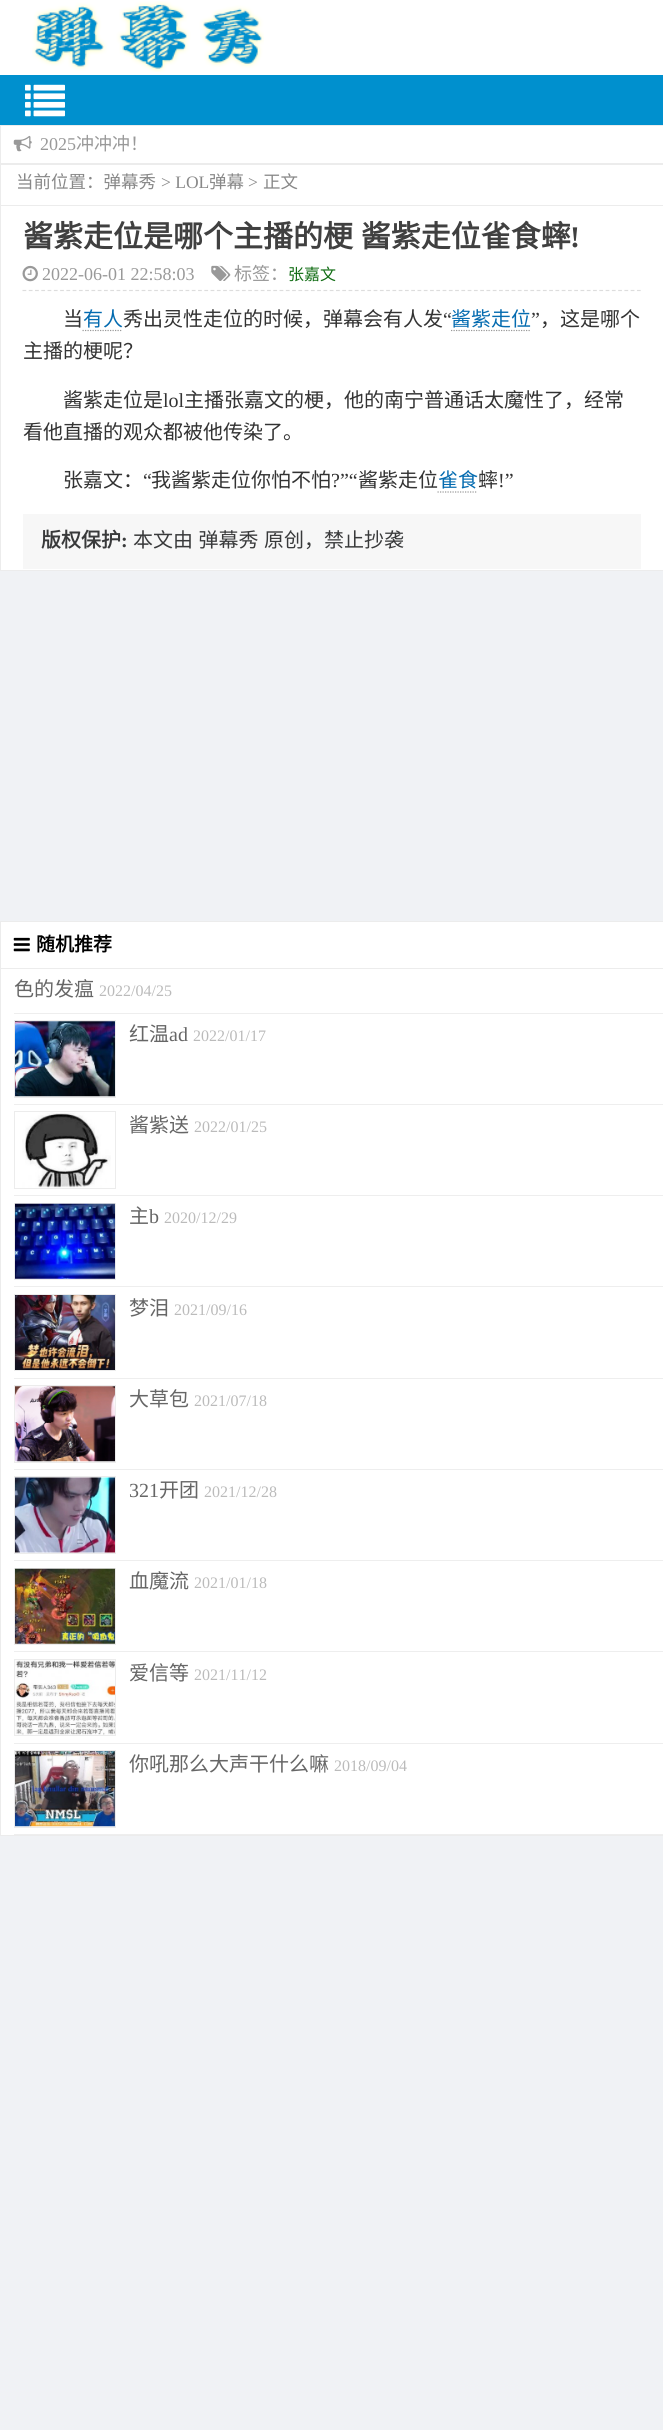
#include <cairo.h>
#include <math.h>
#include <stddef.h>

static cairo_t *c;
static void C(unsigned color){cairo_set_source_rgb(c, (color >> 16) / 255.0, (color >> 8 & 255) / 255.0, (color & 255) / 255.0);}
static void F(const char *family, double size, int italic, int bold){cairo_select_font_face(c, family, italic ? CAIRO_FONT_SLANT_ITALIC : CAIRO_FONT_SLANT_NORMAL,bold ? CAIRO_FONT_WEIGHT_BOLD : CAIRO_FONT_WEIGHT_NORMAL);cairo_set_font_size(c, size);}
static void T(double x, double y, const char *s){cairo_move_to(c, x, y);cairo_show_text(c, s);}
static void L(double x, double y, const char *s, double letter, double word){cairo_move_to(c, x, y);while (*s) {char ch[5] = {0};int n = 0;do ch[n++] = *s++; while ((*s & 0xC0) == 0x80);cairo_show_text(c, ch);cairo_rel_move_to(c, letter + word * (*ch == ' '), 0);}}
static void R(double x, double y, double w, double h){cairo_rectangle(c, x, y, w, h);cairo_fill(c);}
static void I(const char *path, double x, double y, double w, double h){cairo_surface_t *image = cairo_image_surface_create_from_png(path);cairo_save(c);cairo_set_source_surface(c, image, x, y);cairo_rectangle(c, x, y, w, h);cairo_fill(c);cairo_restore(c);cairo_surface_destroy(image);}
int main(void) {
cairo_surface_t *surface = cairo_image_surface_create(CAIRO_FORMAT_RGB24, 663, 2430);
c = cairo_create(surface);
cairo_font_options_t *options = cairo_font_options_create();
cairo_font_options_set_hint_metrics(options, CAIRO_HINT_METRICS_OFF);
cairo_font_options_set_hint_style(options, CAIRO_HINT_STYLE_NONE);
cairo_set_font_options(c, options);
cairo_set_miter_limit(c, 4);
C(0xf0f2f5);
cairo_paint(c);
C(0xffffff);
R(0,0,663,163);
I("1.png",32,1,232,71);
C(0x0090ce);
R(0,75,663,50);
I("2.png",25,84,40,33);
cairo_rectangle(c,.5,125.5,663,38);
C(0xececec);
cairo_set_line_width(c,1);
cairo_stroke(c);
I("3.png",13,135,19,17);
F("Liberation Serif",18,0,0);
C(0x999999);
T(40,150,"2025");
F("Noto Sans CJK SC",18,0,0);
T(76,150,"冲冲冲！");
C(0xffffff);
cairo_rectangle(c,.5,164.5,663,406);
cairo_fill_preserve(c);
C(0xececec);
cairo_stroke(c);
R(1,205,662,1);
F("Noto Sans CJK SC",17.5,0,0);
C(0x888888);
T(16,188,"当前位置：弹幕秀");
F("Liberation Serif",17.5,0,0);
T(161,188,"> LOL");
F("Noto Sans CJK SC",17.5,0,0);
T(209,188,"弹幕");
F("Liberation Serif",17.5,0,0);
T(248,188,">");
F("Noto Sans CJK SC",17.5,0,0);
T(263,188,"正文");
cairo_new_path(c);
cairo_move_to(c,22.5,290.5);
cairo_line_to(c,641,290.5);
C(0xdddddd);
cairo_set_line_width(c,1.2);
cairo_set_dash(c,(double[]){3.75,2.52},2,0);
cairo_stroke(c);
F("Noto Sans CJK SC",30,0,1);
C(0x404040);
L(23,247,"酱紫走位是哪个主播的梗 酱紫走位雀食蟀",0,1);
F("Liberation Serif",30,0,1);
T(570,247,"!");
I("4.png",22,265,16,17);
F("Liberation Serif",18,0,0);
C(0x999999);
T(42,280,"2022-06-01 22:58:03");
I("5.png",211,265,20,16);
F("Noto Sans CJK SC",18,0,0);
T(234,280,"标签：");
F("Noto Sans CJK SC",16,0,0);
C(0x116d14);
T(288,280,"张嘉文");
F("Noto Sans CJK SC",20,0,0);
C(0x333333);
T(63,326,"当");
C(0x046bb0);
T(83,326,"有人");
cairo_new_path(c);
cairo_move_to(c,82.5,330.5);
cairo_line_to(c,122.5,330.5);
C(0x999999);
cairo_set_dash(c,(double[]){1.25,1.25},2,0);
cairo_stroke(c);
C(0x333333);
T(123,326,"秀出灵性走位的时候，弹幕会有人发");
F("Liberation Serif",20,0,0);
T(443,326,"“");
F("Noto Sans CJK SC",20,0,0);
C(0x046bb0);
T(451,326,"酱紫走位");
cairo_new_path(c);
cairo_move_to(c,451,330.5);
cairo_line_to(c,531,330.5);
C(0x999999);
cairo_stroke(c);
F("Liberation Serif",20,0,0);
C(0x333333);
T(531,326,"”");
F("Noto Sans CJK SC",20,0,0);
T(540,326,"，这是哪个");
T(23,358,"主播的梗呢？");
T(63,407,"酱紫走位是");
F("Liberation Serif",20,0,0);
T(163,407,"lol");
F("Noto Sans CJK SC",20,0,0);
T(184,407,"主播张嘉文的梗，他的南宁普通话太魔性了，经常");
T(23,439,"看他直播的观众都被他传染了。");
T(63,487,"张嘉文：");
F("Liberation Serif",20,0,0);
T(143,487,"“");
F("Noto Sans CJK SC",20,0,0);
T(151,487,"我酱紫走位你怕不怕");
F("Liberation Serif",20,0,0);
T(331,487,"?”“");
F("Noto Sans CJK SC",20,0,0);
T(358,487,"酱紫走位");
C(0x046bb0);
T(438,487,"雀食");
cairo_new_path(c);
cairo_move_to(c,437.5,492);
cairo_line_to(c,477.5,492);
C(0x999999);
cairo_stroke(c);
C(0x333333);
T(478,487,"蟀");
F("Liberation Serif",20,0,0);
T(498,487,"!”");
C(0xf7f7f7);
R(23,514,618,55);
F("Noto Sans CJK SC",20,0,1);
C(0x393a3b);
T(41,547,"版权保护");
F("Liberation Serif",20,0,1);
T(121,547,":");
F("Noto Sans CJK SC",20,0,0);
L(133,547,"本文由 弹幕秀 原创，禁止抄袭",0,1);
C(0xffffff);
R(1,922,662,913);
cairo_rectangle(c,.5,921.5,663,47);
C(0xececec);
cairo_set_line_width(c,1);
cairo_set_dash(c,NULL,0,0);
cairo_stroke(c);
I("6.png",13,937,17,15);
F("Noto Sans CJK SC",19,0,1);
C(0x000000);
T(36,951,"随机推荐");
C(0xececec);
R(0,1835,663,1);
R(0,969,1,867);
C(0xeeeeee);
R(14,1013,649,1);
F("Noto Sans CJK SC",20,0,0);
C(0x666666);
T(14,996,"色的发瘟");
F("Liberation Serif",16,0,0);
C(0xbbbbbb);
T(99,996,"2022/04/25");
C(0xeeeeee);
R(14,1104,649,1);
cairo_rectangle(c,14.5,1020.5,101,77);
C(0xececec);
cairo_stroke(c);
I("7.png",15,1021,100,76);
F("Noto Sans CJK SC",20,0,0);
C(0x666666);
T(129,1041,"红温");
F("Liberation Serif",20,0,0);
T(169,1041,"ad");
F("Liberation Serif",16,0,0);
C(0xbbbbbb);
T(193,1041,"2022/01/17");
C(0xeeeeee);
R(14,1195,649,1);
cairo_rectangle(c,14.5,1111.5,101,77);
C(0xececec);
cairo_stroke(c);
I("8.png",22,1112,89,76);
F("Noto Sans CJK SC",20,0,0);
C(0x666666);
T(129,1132,"酱紫送");
F("Liberation Serif",16,0,0);
C(0xbbbbbb);
T(194,1132,"2022/01/25");
C(0xeeeeee);
R(14,1286,649,1);
cairo_rectangle(c,14.5,1203.5,101,76);
C(0xececec);
cairo_stroke(c);
I("9.png",15,1203,100,76);
F("Noto Sans CJK SC",20,0,0);
C(0x666666);
T(129,1223,"主");
F("Liberation Serif",20,0,0);
T(149,1223,"b");
F("Liberation Serif",16,0,0);
C(0xbbbbbb);
T(164,1223,"2020/12/29");
C(0xeeeeee);
R(14,1378,649,1);
cairo_rectangle(c,14.5,1294.5,101,76);
C(0xececec);
cairo_stroke(c);
I("10.png",15,1295,100,75);
F("Noto Sans CJK SC",20,0,0);
C(0x666666);
T(129,1315,"梦泪");
F("Liberation Serif",16,0,0);
C(0xbbbbbb);
T(174,1315,"2021/09/16");
C(0xeeeeee);
R(14,1469,649,1);
cairo_rectangle(c,14.5,1385.5,101,77);
C(0xececec);
cairo_stroke(c);
I("11.png",15,1386,100,76);
F("Noto Sans CJK SC",20,0,0);
C(0x666666);
T(129,1406,"大草包");
F("Liberation Serif",16,0,0);
C(0xbbbbbb);
T(194,1406,"2021/07/18");
C(0xeeeeee);
R(14,1560,649,1);
cairo_rectangle(c,14.5,1476.5,101,77);
C(0xececec);
cairo_stroke(c);
I("12.png",15,1477,100,76);
F("Liberation Serif",20,0,0);
C(0x666666);
T(129,1497,"321");
F("Noto Sans CJK SC",20,0,0);
T(159,1497,"开团");
F("Liberation Serif",16,0,0);
C(0xbbbbbb);
T(204,1497,"2021/12/28");
C(0xeeeeee);
R(14,1651,649,1);
cairo_rectangle(c,14.5,1568.5,101,76);
C(0xececec);
cairo_stroke(c);
I("13.png",15,1568,100,76);
F("Noto Sans CJK SC",20,0,0);
C(0x666666);
T(129,1588,"血魔流");
F("Liberation Serif",16,0,0);
C(0xbbbbbb);
T(194,1588,"2021/01/18");
C(0xeeeeee);
R(14,1743,649,1);
cairo_rectangle(c,14.5,1659.5,101,76);
C(0xececec);
cairo_stroke(c);
I("14.png",15,1660,100,75);
F("Noto Sans CJK SC",20,0,0);
C(0x666666);
T(129,1680,"爱信等");
F("Liberation Serif",16,0,0);
C(0xbbbbbb);
T(194,1680,"2021/11/12");
C(0xeeeeee);
R(14,1834,649,1);
cairo_rectangle(c,14.5,1750.5,101,77);
C(0xececec);
cairo_stroke(c);
I("15.png",15,1751,100,76);
F("Noto Sans CJK SC",20,0,0);
C(0x666666);
T(129,1771,"你吼那么大声干什么嘛");
F("Liberation Serif",16,0,0);
C(0xbbbbbb);
T(334,1771,"2018/09/04");
cairo_surface_write_to_png(surface, "o.png");
cairo_font_options_destroy(options);
cairo_destroy(c);
cairo_surface_destroy(surface);
return 0;
}
